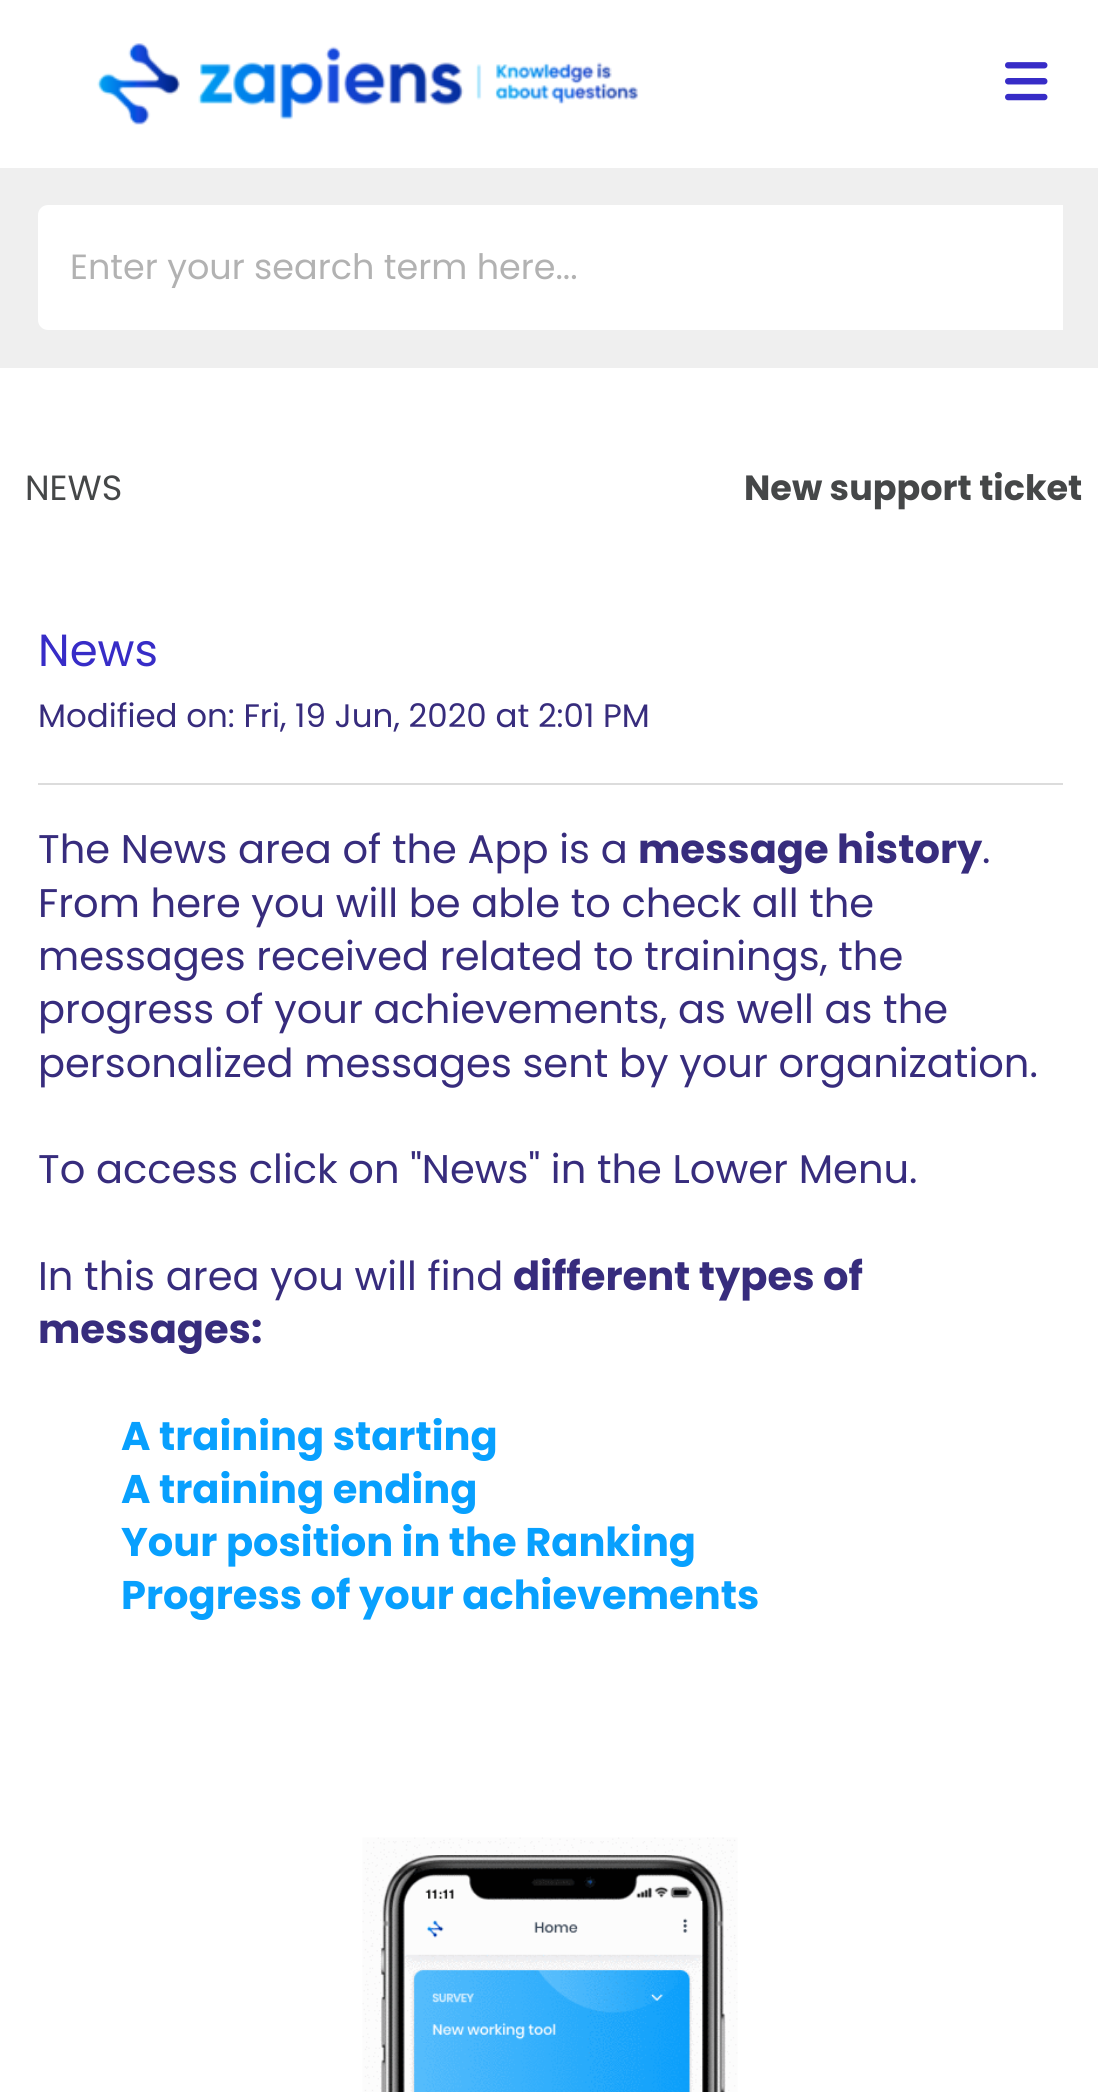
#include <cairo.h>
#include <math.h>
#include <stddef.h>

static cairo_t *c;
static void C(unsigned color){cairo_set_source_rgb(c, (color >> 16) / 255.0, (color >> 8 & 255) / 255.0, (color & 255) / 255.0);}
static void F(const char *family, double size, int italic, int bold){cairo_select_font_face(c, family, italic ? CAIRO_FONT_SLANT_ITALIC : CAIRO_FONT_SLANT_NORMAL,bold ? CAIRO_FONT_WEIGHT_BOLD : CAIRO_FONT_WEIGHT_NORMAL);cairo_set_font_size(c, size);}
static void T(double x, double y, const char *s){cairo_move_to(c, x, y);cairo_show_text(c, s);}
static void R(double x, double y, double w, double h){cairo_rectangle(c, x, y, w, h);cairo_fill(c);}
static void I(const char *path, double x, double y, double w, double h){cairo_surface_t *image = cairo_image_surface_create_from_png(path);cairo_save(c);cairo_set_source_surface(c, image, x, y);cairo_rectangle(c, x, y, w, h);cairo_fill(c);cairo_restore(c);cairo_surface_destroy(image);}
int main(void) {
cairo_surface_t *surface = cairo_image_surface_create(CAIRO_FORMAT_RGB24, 1098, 2092);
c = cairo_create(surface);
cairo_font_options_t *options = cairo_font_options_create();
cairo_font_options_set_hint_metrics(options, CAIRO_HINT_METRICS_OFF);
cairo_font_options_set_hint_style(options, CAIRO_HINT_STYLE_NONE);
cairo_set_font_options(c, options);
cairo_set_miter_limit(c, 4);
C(0xffffff);
cairo_paint(c);
I("1.png",97,43,542,82);
I("2.png",1005,62,43,39);
C(0xefefef);
R(0,168,1098,200);
C(0xffffff);
cairo_new_path(c);
cairo_move_to(c,48,205);
cairo_line_to(c,1063,205);
cairo_line_to(c,1063,330);
cairo_line_to(c,48,330);
cairo_curve_to(c,42.5,330,38,325.5,38,320);
cairo_line_to(c,38,215);
cairo_curve_to(c,38,209.5,42.5,205,48,205);
cairo_close_path(c);
cairo_fill(c);
F("Poppins",35,0,0);
C(0xb2b2b2);
T(70,279,"Enter your search term here...");
C(0x454748);
T(25,500,"NEWS");
F("Poppins",35,0,1);
T(744,500,"New support ticket");
F("Poppins",45,0,0);
C(0x372cc7);
T(38,666,"News");
F("Poppins",32.5,0,0);
C(0x372c7d);
T(38,727,"Modified on: Fri, 19 Jun, 2020 at 2:01 PM");
C(0xdcdcdc);
R(38,783,1025,2);
F("Poppins",40,0,0);
C(0x372c7d);
T(38,863,"The News area of the App is a");
F("Poppins",40,0,1);
T(638,863,"message history");
F("Poppins",40,0,0);
T(982,863,".");
T(38,917,"From here you will be able to check all the");
T(38,970,"messages received related to trainings, the");
T(38,1023,"progress of your achievements, as well as the");
T(38,1077,"personalized messages sent by your organization.");
T(38,1183,"To access click on \"News\" in the Lower Menu.");
T(38,1290,"In this area you will find");
F("Poppins",40,0,1);
T(513,1290,"different types of");
T(38,1343,"messages:");
C(0x08a0fe);
T(121,1450,"A training starting");
T(121,1503,"A training ending");
T(121,1556,"Your position in the Ranking");
T(121,1609,"Progress of your achievements");
I("3.png",362,1837,376,255);
cairo_surface_write_to_png(surface, "o.png");
cairo_font_options_destroy(options);
cairo_destroy(c);
cairo_surface_destroy(surface);
return 0;
}
